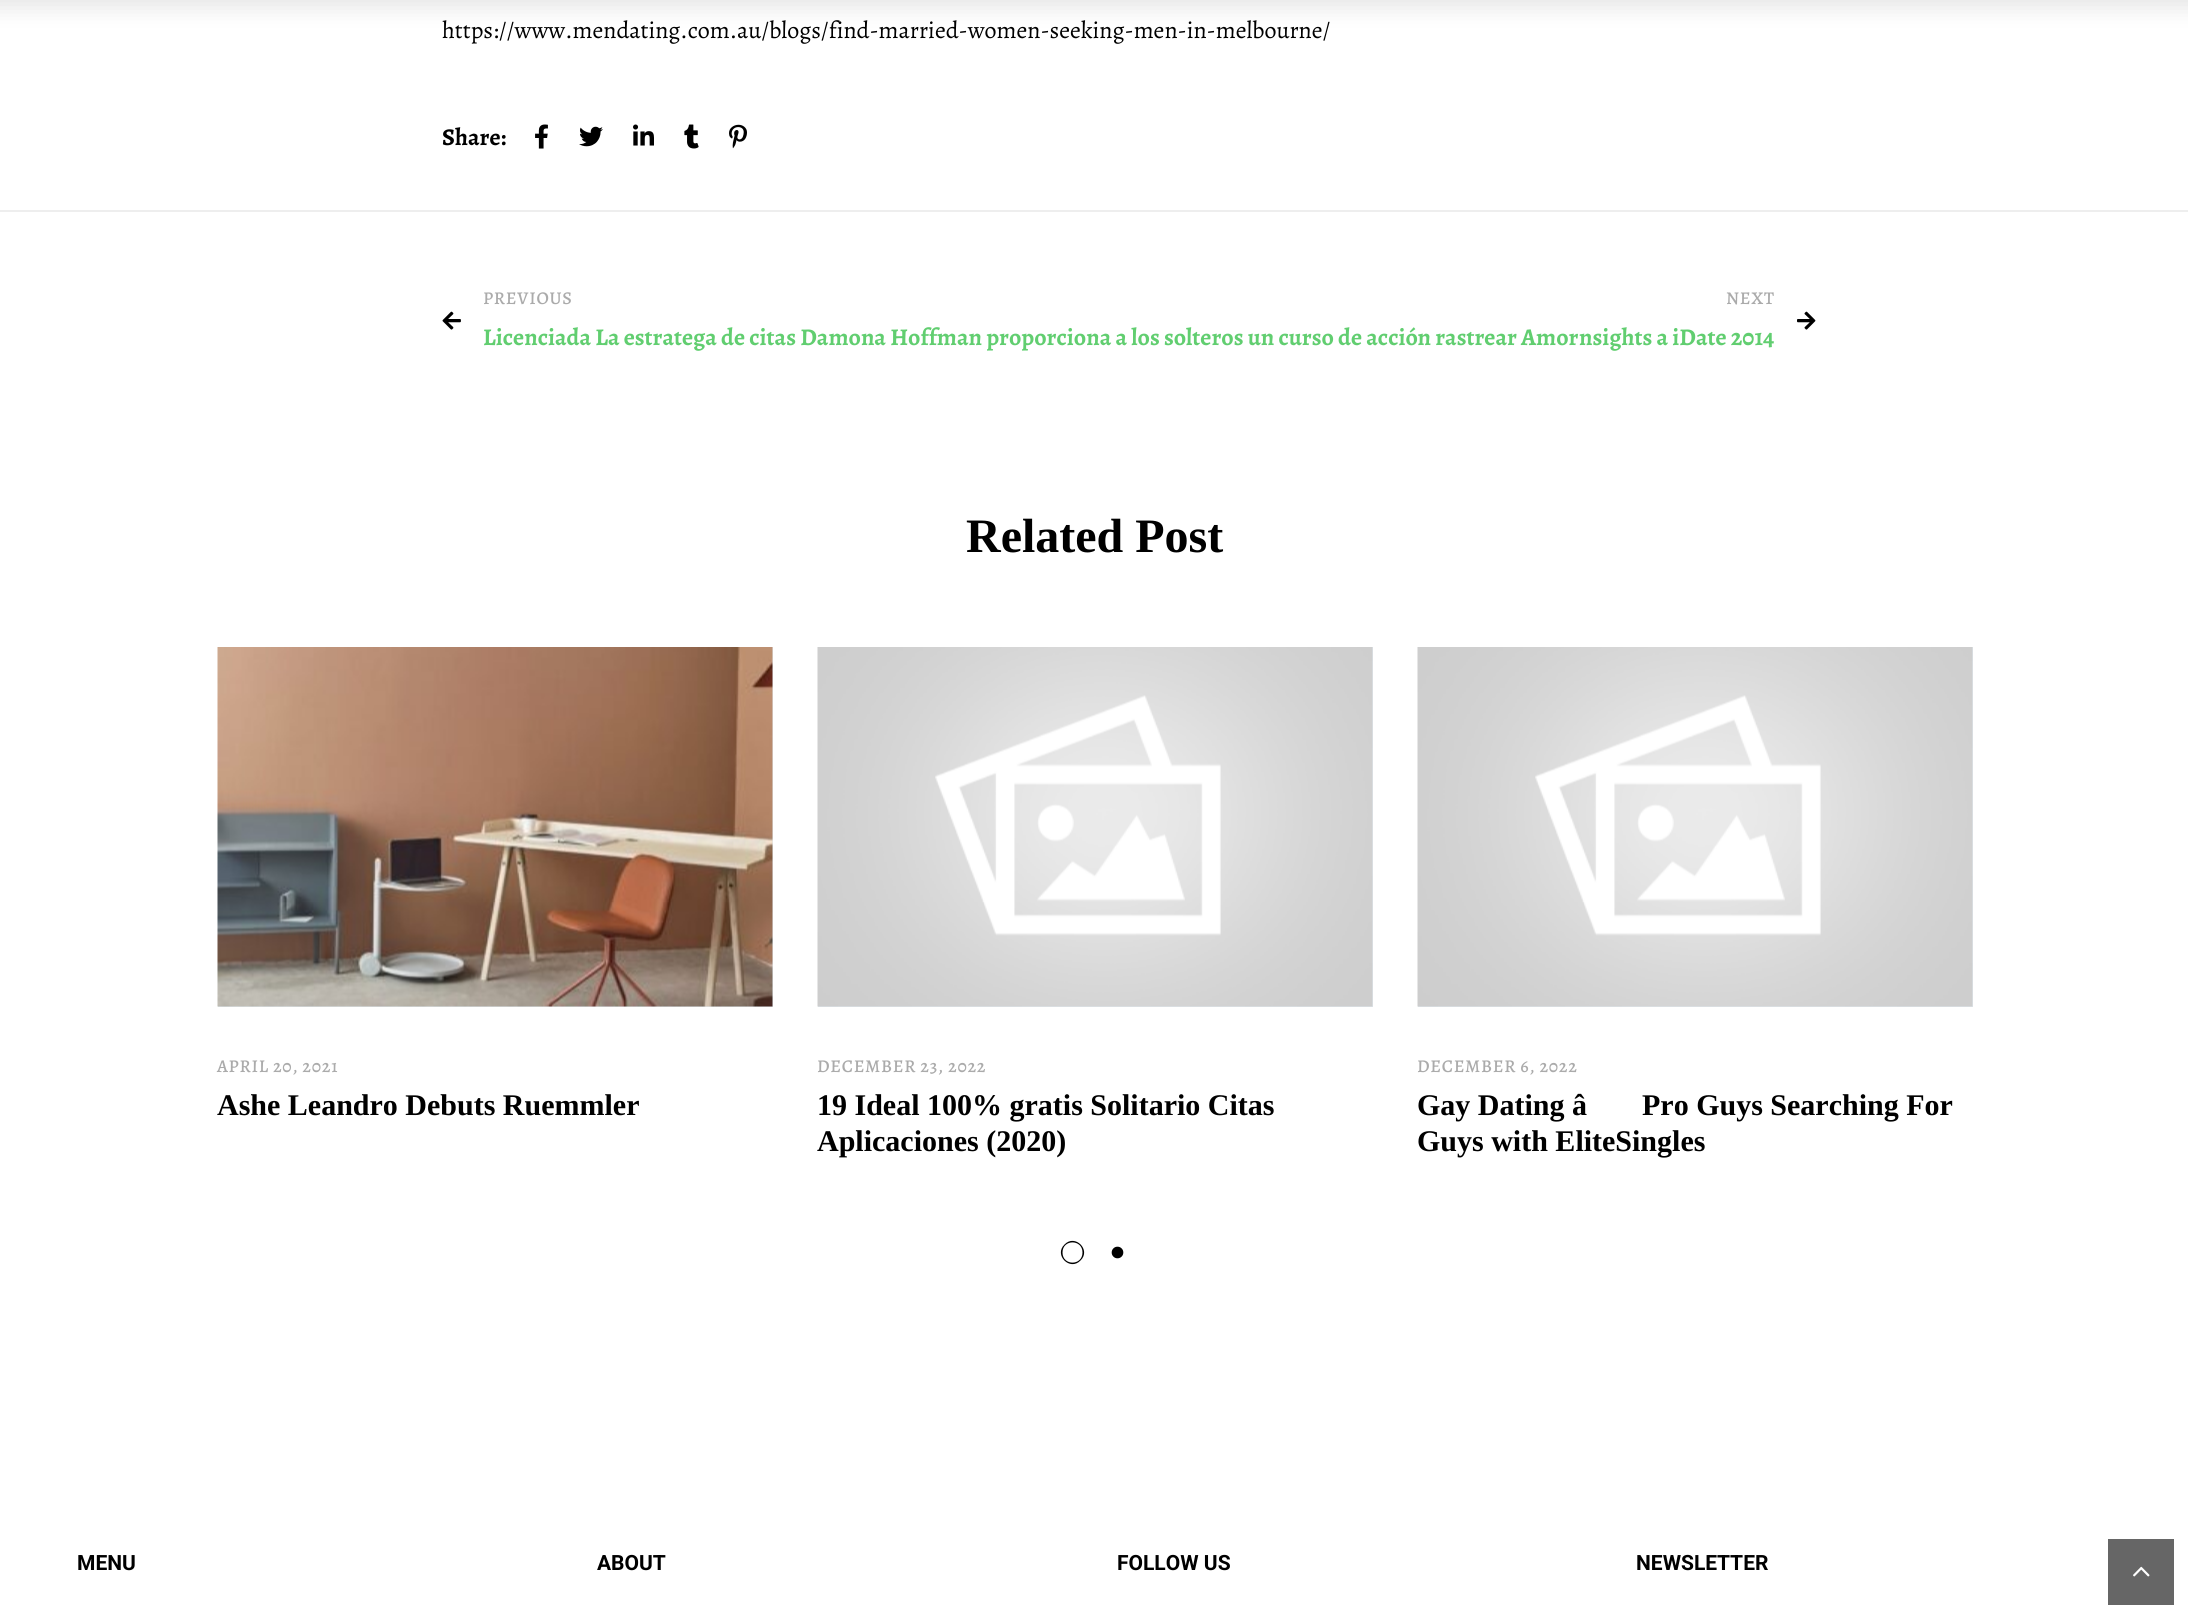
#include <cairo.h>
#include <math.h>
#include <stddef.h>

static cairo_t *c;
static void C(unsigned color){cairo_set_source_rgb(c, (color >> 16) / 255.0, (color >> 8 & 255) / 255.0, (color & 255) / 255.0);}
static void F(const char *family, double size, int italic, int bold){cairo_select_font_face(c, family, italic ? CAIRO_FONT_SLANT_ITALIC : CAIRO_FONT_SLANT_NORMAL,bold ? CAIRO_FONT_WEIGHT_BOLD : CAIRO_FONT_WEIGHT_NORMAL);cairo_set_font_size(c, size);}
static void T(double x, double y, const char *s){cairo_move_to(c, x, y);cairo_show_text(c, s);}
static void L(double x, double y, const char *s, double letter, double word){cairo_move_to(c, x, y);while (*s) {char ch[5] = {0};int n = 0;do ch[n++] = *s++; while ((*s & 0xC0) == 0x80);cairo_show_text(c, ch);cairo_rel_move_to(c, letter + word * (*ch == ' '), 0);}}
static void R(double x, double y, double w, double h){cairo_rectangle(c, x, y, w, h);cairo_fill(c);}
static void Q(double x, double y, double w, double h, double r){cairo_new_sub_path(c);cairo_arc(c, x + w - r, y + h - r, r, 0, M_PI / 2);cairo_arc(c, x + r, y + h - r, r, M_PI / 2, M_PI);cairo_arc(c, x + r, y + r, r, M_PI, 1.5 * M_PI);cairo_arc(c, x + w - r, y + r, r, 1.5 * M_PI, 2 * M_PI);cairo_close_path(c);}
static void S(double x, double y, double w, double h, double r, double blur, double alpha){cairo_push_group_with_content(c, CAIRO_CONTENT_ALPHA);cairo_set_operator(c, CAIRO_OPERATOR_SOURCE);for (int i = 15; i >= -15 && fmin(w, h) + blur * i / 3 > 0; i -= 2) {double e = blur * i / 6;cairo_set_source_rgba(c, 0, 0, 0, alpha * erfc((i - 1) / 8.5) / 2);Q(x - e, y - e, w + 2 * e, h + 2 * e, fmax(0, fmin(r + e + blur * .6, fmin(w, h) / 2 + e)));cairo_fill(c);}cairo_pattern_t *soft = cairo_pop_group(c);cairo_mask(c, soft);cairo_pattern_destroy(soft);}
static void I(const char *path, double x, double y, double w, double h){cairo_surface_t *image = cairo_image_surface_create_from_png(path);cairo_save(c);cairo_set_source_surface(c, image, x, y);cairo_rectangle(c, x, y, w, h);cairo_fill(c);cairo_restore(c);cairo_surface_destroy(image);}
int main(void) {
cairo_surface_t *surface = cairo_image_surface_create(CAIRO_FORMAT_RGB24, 2188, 1619);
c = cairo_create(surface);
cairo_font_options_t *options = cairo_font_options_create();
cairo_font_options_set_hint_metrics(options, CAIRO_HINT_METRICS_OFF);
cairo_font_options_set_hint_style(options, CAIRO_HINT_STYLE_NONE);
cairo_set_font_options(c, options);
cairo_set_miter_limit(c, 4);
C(0xffffff);
cairo_paint(c);
C(0x000000);
S(-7,-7,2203,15,0,11,.1);
F("Alegreya",24,0,0);
C(0x000000);
T(442,38,"https://www.mendating.com.au/blogs/find-married-women-seeking-men-in-melbourne/");
F("Alegreya",24,0,1);
T(442,145,"Share:");
I("1.png",535,124,13,25);
I("2.png",579,126,24,21);
I("3.png",633,124,21,22);
I("4.png",684,124,15,25);
I("5.png",729,124,18,25);
C(0xeeeeee);
R(0,210,2188,2);
I("6.png",442,311,19,19);
F("Alegreya Medium",18,0,0);
C(0xababab);
L(483,304,"PREVIOUS",.75,0);
F("Alegreya",24,0,1);
C(0x61ce70);
T(483,345,"Licenciada La estratega de citas Damona Hoffman proporciona a los solteros un curso de acción rastrear Amor");
F("Alegreya Medium",18,0,0);
C(0xababab);
L(1726,304,"NEXT",.75,0);
F("Alegreya",24,0,1);
C(0x61ce70);
T(1579,345,"nsights a iDate 2014");
I("7.png",1797,311,19,19);
F("Liberation Serif",48,0,1);
C(0x000000);
T(966,552,"Related Post");
C(0xe0e8ee);
R(218,647,555,360);
I("8.png",217,647,556,360);
F("Alegreya Medium",18,0,0);
C(0xababab);
L(217,1072,"APRIL 20, 2021",.75,0);
F("Liberation Serif",30,0,1);
C(0x000000);
T(217,1115,"Ashe Leandro Debuts Ruemmler");
C(0xe0e8ee);
R(818,647,555,360);
I("9.png",817,647,556,360);
F("Alegreya Medium",18,0,0);
C(0xababab);
L(817,1072,"DECEMBER 23, 2022",.75,0);
F("Liberation Serif",30,0,1);
C(0x000000);
T(817,1115,"19 Ideal 100% gratis Solitario Citas");
T(817,1151,"Aplicaciones (2020)");
C(0xe0e8ee);
R(1418,647,555,360);
I("9.png",1417,647,556,360);
F("Alegreya Medium",18,0,0);
C(0xababab);
L(1417,1072,"DECEMBER 6, 2022",.75,0);
F("Liberation Serif",30,0,1);
C(0x000000);
T(1417,1115,"Gay Dating â");
T(1642,1115,"Pro Guys Searching For");
T(1417,1151,"Guys with EliteSingles");
cairo_new_path(c);
cairo_move_to(c,1064.5,1244.5);
cairo_curve_to(c,1075,1233.5,1091.5,1250,1080.5,1260.5);
cairo_curve_to(c,1070,1271.5,1053.5,1255,1064.5,1244.5);
cairo_close_path(c);
cairo_move_to(c,1082.5,1252.5);
cairo_curve_to(c,1082.5,1239,1062.5,1239,1062.5,1252.5);
cairo_curve_to(c,1062.5,1266,1082.5,1266,1082.5,1252.5);
cairo_close_path(c);
cairo_fill(c);
I("10.png",1111,1246,13,13);
F("Roboto",21,0,1);
T(77,1570,"MENU");
T(597,1570,"ABOUT");
T(1117,1570,"FOLLOW US");
T(1636,1570,"NEWSLETTER");
C(0x666666);
R(2108,1539,66,66);
I("11.png",2133,1566,17,11);
cairo_surface_write_to_png(surface, "o.png");
cairo_font_options_destroy(options);
cairo_destroy(c);
cairo_surface_destroy(surface);
return 0;
}
